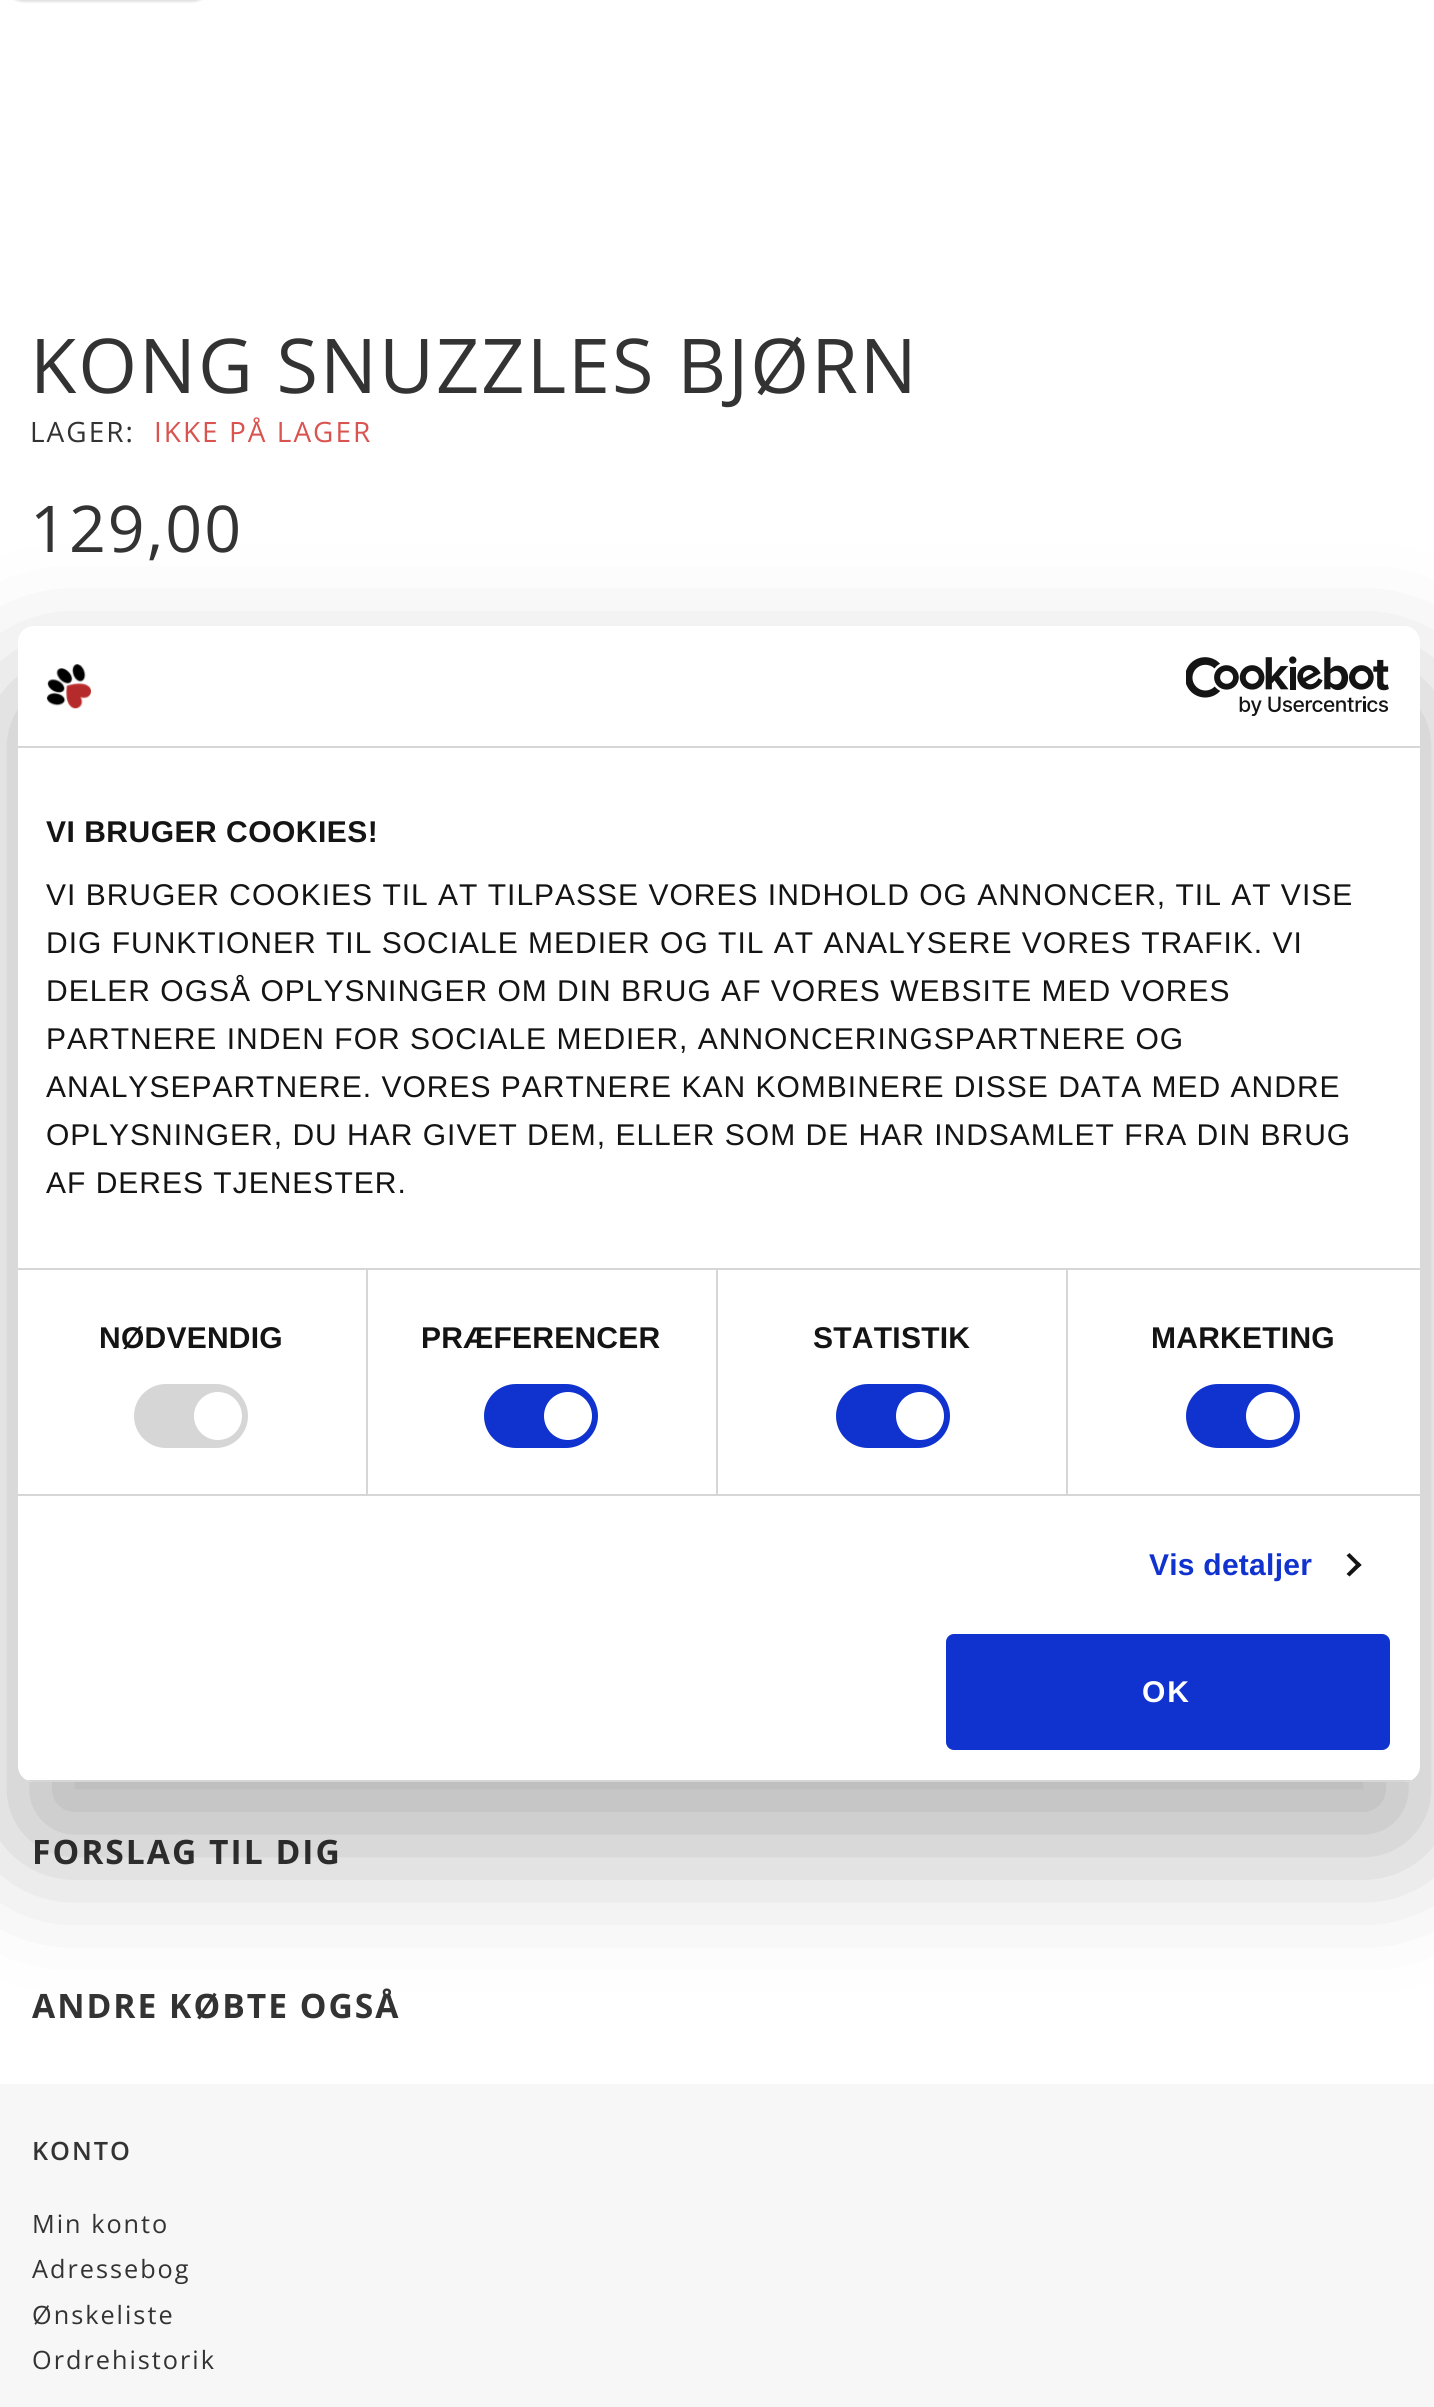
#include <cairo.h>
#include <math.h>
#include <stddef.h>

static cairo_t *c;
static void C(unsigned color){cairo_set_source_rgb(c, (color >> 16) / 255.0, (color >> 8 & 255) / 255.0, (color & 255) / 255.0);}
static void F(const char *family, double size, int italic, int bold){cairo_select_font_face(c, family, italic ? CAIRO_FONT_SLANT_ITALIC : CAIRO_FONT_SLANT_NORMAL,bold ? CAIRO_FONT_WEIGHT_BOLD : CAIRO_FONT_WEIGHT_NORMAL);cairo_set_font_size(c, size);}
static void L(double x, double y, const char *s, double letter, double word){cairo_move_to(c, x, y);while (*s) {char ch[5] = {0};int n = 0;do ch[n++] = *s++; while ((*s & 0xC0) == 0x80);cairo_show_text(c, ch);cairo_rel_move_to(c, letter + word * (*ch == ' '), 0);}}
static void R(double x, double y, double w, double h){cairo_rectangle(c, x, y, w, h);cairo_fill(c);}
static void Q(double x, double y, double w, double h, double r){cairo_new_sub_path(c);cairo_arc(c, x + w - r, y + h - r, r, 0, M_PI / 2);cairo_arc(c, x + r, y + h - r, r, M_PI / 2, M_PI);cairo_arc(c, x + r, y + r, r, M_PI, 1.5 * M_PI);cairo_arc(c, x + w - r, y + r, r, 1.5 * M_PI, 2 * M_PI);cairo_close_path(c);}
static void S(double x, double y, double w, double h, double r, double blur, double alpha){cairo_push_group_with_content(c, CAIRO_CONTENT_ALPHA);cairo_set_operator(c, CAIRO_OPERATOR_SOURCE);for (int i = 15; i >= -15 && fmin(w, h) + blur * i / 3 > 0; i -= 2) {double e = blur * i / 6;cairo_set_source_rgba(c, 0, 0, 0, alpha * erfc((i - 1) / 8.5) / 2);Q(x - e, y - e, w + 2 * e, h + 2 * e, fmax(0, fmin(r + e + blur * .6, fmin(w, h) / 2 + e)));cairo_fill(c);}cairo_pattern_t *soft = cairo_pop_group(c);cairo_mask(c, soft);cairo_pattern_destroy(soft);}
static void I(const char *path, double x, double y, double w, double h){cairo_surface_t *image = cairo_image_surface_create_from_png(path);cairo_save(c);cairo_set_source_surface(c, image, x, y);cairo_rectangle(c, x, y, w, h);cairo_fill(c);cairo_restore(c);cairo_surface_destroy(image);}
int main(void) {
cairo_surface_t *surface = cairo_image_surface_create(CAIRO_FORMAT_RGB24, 1434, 2407);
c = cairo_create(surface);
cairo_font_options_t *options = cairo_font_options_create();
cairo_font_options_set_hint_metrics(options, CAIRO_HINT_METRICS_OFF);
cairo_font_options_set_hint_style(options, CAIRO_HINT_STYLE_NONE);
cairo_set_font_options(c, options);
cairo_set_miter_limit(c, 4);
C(0xffffff);
cairo_paint(c);
C(0x000000);
S(-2,-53,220,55,50,1,.12);
F("Open Sans",75.6,0,0);
C(0x333333);
L(30,393,"KONG SNUZZLES BJØRN",2,0);
F("Open Sans",28,0,0);
L(30,442,"LAGER:",2,0);
C(0xd9534f);
L(154,442,"IKKE PÅ LAGER",2,0);
F("Open Sans",64.5,0,0);
C(0x333333);
L(30,552,"129,00",2,0);
F("Open Sans",33.6,0,1);
L(32,1864,"FORSLAG TIL DIG",2,0);
L(32,2018,"ANDRE KØBTE OGSÅ",2,0);
C(0xf7f7f7);
R(0,2084,1434,323);
F("Open Sans SemiBold",25.25,0,0);
C(0x333333);
L(32,2160,"KONTO",2,0);
F("Open Sans",25.25,0,0);
L(32,2233,"Min konto",2,0);
L(32,2278,"Adressebog",2,0);
L(32,2324,"Ønskeliste",2,0);
L(32,2369,"Ordrehistorik",2,0);
C(0x000000);
S(18,690,1402,1156,16,68,.3);
C(0xffffff);
Q(18,626,1402,1156,16);
cairo_fill(c);
C(0xd6d6d6);
R(18,746,1402,2);
I("1.png",46,664,45,45);
I("2.png",1186,656,203,60);
R(18,1268,1402,2);
F("Liberation Sans",30,0,1);
C(0x141414);
L(46,842,"VI BRUGER COOKIES!",.5,0);
F("Liberation Sans",30,0,0);
L(46,905,"VI BRUGER COOKIES TIL AT TILPASSE VORES INDHOLD OG ANNONCER, TIL AT VISE",1,0);
L(46,953,"DIG FUNKTIONER TIL SOCIALE MEDIER OG TIL AT ANALYSERE VORES TRAFIK. VI",1,0);
L(46,1001,"DELER OGSÅ OPLYSNINGER OM DIN BRUG AF VORES WEBSITE MED VORES",1,0);
L(46,1049,"PARTNERE INDEN FOR SOCIALE MEDIER, ANNONCERINGSPARTNERE OG",1,0);
L(46,1097,"ANALYSEPARTNERE. VORES PARTNERE KAN KOMBINERE DISSE DATA MED ANDRE",1,0);
L(46,1145,"OPLYSNINGER, DU HAR GIVET DEM, ELLER SOM DE HAR INDSAMLET FRA DIN BRUG",1,0);
L(46,1193,"AF DERES TJENESTER.",1,0);
C(0xd6d6d6);
R(18,1494,1402,2);
R(366,1270,2,224);
F("Liberation Sans",30,0,1);
C(0x141414);
L(99,1348,"NØDVENDIG",.25,0);
C(0xd6d6d6);
Q(134,1384,114,64,32);
cairo_fill(c);
C(0xffffff);
cairo_arc(c,218,1416,24,0,2 * M_PI);
cairo_fill(c);
C(0xd6d6d6);
R(716,1270,2,224);
C(0x141414);
L(421,1348,"PRÆFERENCER",.25,0);
C(0x1032cf);
Q(484,1384,114,64,32);
cairo_fill(c);
C(0xffffff);
cairo_arc(c,568,1416,24,0,2 * M_PI);
cairo_fill(c);
C(0xd6d6d6);
R(1066,1270,2,224);
C(0x141414);
L(813,1348,"STATISTIK",.25,0);
C(0x1032cf);
Q(836,1384,114,64,32);
cairo_fill(c);
C(0xffffff);
cairo_arc(c,920,1416,24,0,2 * M_PI);
cairo_fill(c);
C(0x141414);
L(1151,1348,"MARKETING",.25,0);
C(0x1032cf);
Q(1186,1384,114,64,32);
cairo_fill(c);
C(0xffffff);
cairo_arc(c,1270,1416,24,0,2 * M_PI);
cairo_fill(c);
C(0x1032cf);
L(1149,1575,"Vis detaljer",.25,0);
C(0x141414);
cairo_new_path(c);
cairo_move_to(c,1349.5,1553);
cairo_line_to(c,1361.5,1565);
cairo_line_to(c,1358.5,1567.5);
cairo_line_to(c,1346.5,1555.5);
cairo_close_path(c);
cairo_fill(c);
cairo_new_path(c);
cairo_move_to(c,1358.5,1562);
cairo_line_to(c,1361.5,1565);
cairo_line_to(c,1349.5,1576.5);
cairo_line_to(c,1346.5,1574);
cairo_close_path(c);
cairo_fill(c);
cairo_save(c);
Q(18,626,1402,1156,16);
cairo_clip(c);
C(0xd6d6d6);
R(18,1780,1402,2);
cairo_restore(c);
C(0x1032cf);
Q(948,1636,440,112,6);
cairo_fill_preserve(c);
cairo_set_line_width(c,4);
cairo_stroke(c);
C(0xffffff);
L(1142,1702,"OK",2,0);
cairo_surface_write_to_png(surface, "o.png");
cairo_font_options_destroy(options);
cairo_destroy(c);
cairo_surface_destroy(surface);
return 0;
}
